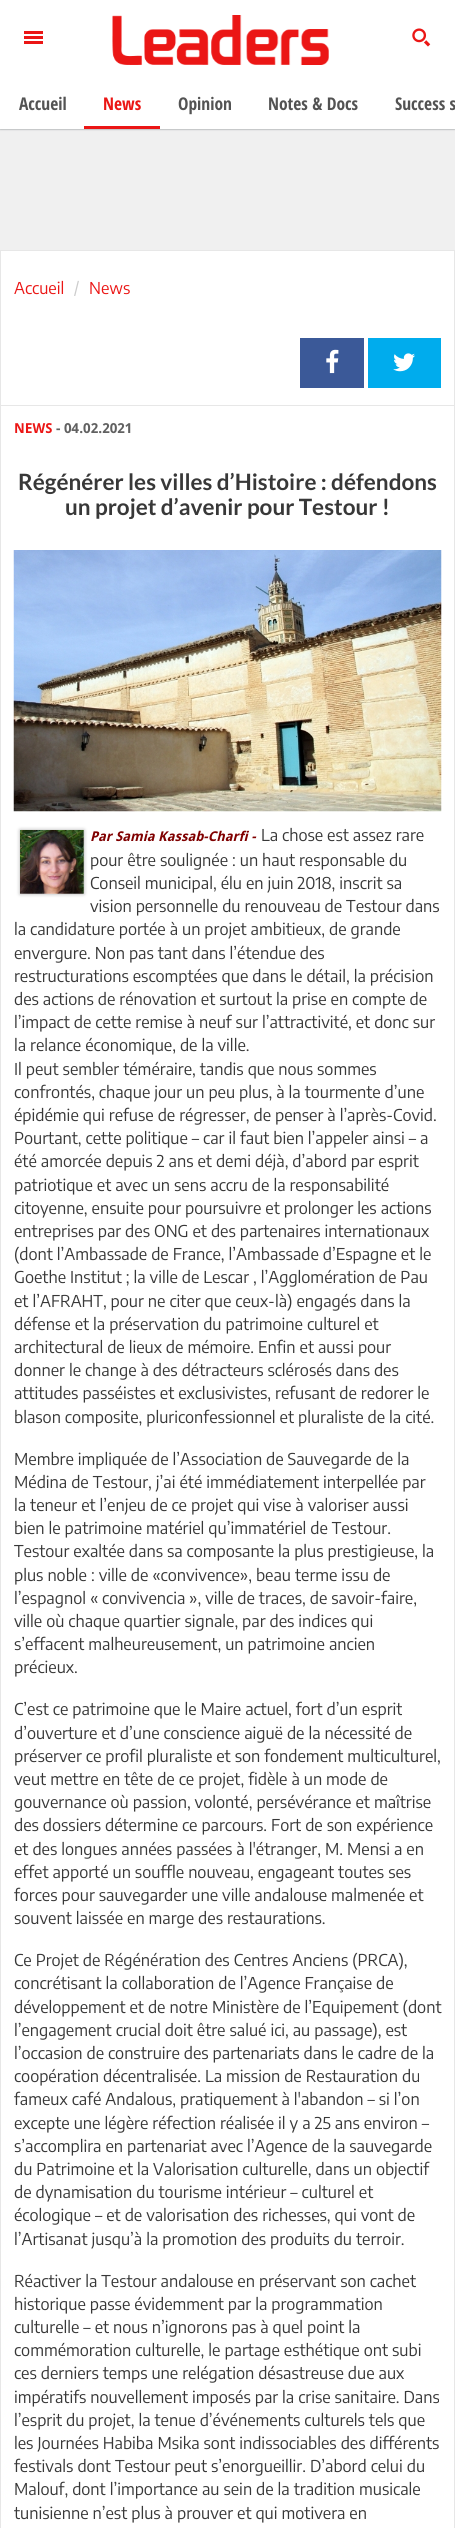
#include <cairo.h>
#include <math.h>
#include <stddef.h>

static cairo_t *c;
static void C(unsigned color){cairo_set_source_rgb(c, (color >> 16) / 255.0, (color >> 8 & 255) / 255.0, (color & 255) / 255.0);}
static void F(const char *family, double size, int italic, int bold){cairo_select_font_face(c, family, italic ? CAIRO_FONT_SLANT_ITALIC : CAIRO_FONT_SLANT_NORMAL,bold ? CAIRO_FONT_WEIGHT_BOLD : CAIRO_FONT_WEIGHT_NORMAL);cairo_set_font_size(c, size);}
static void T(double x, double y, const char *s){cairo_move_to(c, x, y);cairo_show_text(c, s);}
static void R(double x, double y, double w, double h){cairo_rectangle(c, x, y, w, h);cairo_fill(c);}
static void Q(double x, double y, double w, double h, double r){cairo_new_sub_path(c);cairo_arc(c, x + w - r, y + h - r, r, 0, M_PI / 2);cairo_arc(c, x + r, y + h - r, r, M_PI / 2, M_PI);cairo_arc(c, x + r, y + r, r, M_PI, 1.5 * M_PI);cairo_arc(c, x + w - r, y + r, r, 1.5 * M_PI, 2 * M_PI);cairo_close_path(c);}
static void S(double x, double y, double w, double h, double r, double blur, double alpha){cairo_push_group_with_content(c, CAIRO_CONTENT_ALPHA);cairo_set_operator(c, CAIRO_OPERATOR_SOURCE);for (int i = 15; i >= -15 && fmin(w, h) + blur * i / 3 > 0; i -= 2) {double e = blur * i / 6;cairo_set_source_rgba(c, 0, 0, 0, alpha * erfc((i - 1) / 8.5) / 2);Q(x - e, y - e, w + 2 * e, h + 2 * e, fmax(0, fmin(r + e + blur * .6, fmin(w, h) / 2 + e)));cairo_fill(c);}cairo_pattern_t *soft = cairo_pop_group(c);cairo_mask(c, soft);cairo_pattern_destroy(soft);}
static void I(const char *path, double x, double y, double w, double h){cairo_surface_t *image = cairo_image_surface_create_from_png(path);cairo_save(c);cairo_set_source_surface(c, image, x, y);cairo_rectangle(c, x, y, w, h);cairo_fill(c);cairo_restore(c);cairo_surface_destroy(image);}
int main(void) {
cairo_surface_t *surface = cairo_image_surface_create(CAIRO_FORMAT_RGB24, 455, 2528);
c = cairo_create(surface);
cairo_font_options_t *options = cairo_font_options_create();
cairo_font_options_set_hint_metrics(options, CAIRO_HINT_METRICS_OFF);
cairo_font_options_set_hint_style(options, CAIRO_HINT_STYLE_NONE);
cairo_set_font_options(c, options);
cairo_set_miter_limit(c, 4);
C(0xf0f0f0);
cairo_paint(c);
C(0x5b6166);
S(0,0,455,129,0,1,.8);
C(0xffffff);
R(0,0,455,129);
C(0xeb1615);
R(24,31,19,3);
R(24,36,19,3);
R(24,41,19,3);
I("1.png",112,15,217,50);
I("2.png",412,28,19,19);
F("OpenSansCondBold",17.5,0,1);
C(0x535353);
T(19,110,"Accueil");
C(0xeb1615);
R(84,126,76,3);
T(103,110,"News");
C(0x535353);
T(178,110,"Opinion");
T(268,110,"Notes & Docs");
T(395,110,"Success s");
C(0xffffff);
R(1,251,453,154);
C(0xe7e7e7);
R(0,250,455,1);
R(454,250,1,155);
R(0,250,1,155);
F("Encode Sans Condensed Thin",16.25,0,0);
C(0xeb1615);
T(14,294,"Accueil");
C(0xcccccc);
T(74,294,"/");
C(0xeb1615);
T(89,294,"News");
C(0x3b5998);
R(300,338,64,50);
I("3.png",326,349,13,25);
C(0x00aced);
R(368,338,73,50);
I("4.png",393,353,22,19);
C(0xffffff);
cairo_rectangle(c,.5,405.5,454,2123);
cairo_fill_preserve(c);
C(0xe7e7e7);
cairo_set_line_width(c,1);
cairo_stroke(c);
F("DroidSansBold",13.75,0,1);
C(0xeb1615);
T(14,433,"NEWS");
C(0x616161);
T(56,433,"- 04.02.2021");
F("Lato",22.5,0,1);
C(0x383838);
T(18,490,"Régénérer les villes d’Histoire : défendons");
T(65,515,"un projet d’avenir pour Testour !");
I("5.png",13,550,429,262);
C(0x000000);
S(20,830,64,64,0,2,.3);
C(0xf9f9f9);
R(20,830,64,64);
I("6.png",20,830,64,64);
F("DroidSansBold",13.5,1,1);
C(0x800000);
T(90,841,"Par Samia Kassab-Charfi -");
F("Encode Sans Condensed Thin",16.25,0,0);
C(0x383838);
T(261,841,"La chose est assez rare");
T(90,866,"pour être soulignée : un haut responsable du");
T(90,889,"Conseil municipal, élu en juin 2018, inscrit sa");
T(90,912,"vision personnelle du renouveau de Testour dans");
T(14,935,"la candidature portée à un projet ambitieux, de grande");
T(14,959,"envergure. Non pas tant dans l’étendue des");
T(14,982,"restructurations escomptées que dans le détail, la précision");
T(14,1005,"des actions de rénovation et surtout la prise en compte de");
T(14,1028,"l’impact de cette remise à neuf sur l’attractivité, et donc sur");
T(14,1051,"la relance économique, de la ville.");
T(14,1075,"Il peut sembler téméraire, tandis que nous sommes");
T(14,1098,"confrontés, chaque jour un peu plus, à la tourmente d’une");
T(14,1121,"épidémie qui refuse de régresser, de penser à l’après-Covid.");
T(14,1144,"Pourtant, cette politique – car il faut bien l’appeler ainsi – a");
T(14,1167,"été amorcée depuis 2 ans et demi déjà, d’abord par esprit");
T(14,1191,"patriotique et avec un sens accru de la responsabilité");
T(14,1214,"citoyenne, ensuite pour poursuivre et prolonger les actions");
T(14,1237,"entreprises par des ONG et des partenaires internationaux");
T(14,1260,"(dont l’Ambassade de France, l’Ambassade d’Espagne et le");
T(14,1283,"Goethe Institut ; la ville de Lescar , l’Agglomération de Pau");
T(14,1307,"et l’AFRAHT, pour ne citer que ceux-là) engagés dans la");
T(14,1330,"défense et la préservation du patrimoine culturel et");
T(14,1353,"architectural de lieux de mémoire. Enfin et aussi pour");
T(14,1376,"donner le change à des détracteurs sclérosés dans des");
T(14,1399,"attitudes passéistes et exclusivistes, refusant de redorer le");
T(14,1423,"blason composite, pluriconfessionnel et pluraliste de la cité.");
T(14,1465,"Membre impliquée de l’Association de Sauvegarde de la");
T(14,1488,"Médina de Testour, j’ai été immédiatement interpellée par");
T(14,1511,"la teneur et l’enjeu de ce projet qui vise à valoriser aussi");
T(14,1534,"bien le patrimoine matériel qu’immatériel de Testour.");
T(14,1557,"Testour exaltée dans sa composante la plus prestigieuse, la");
T(14,1581,"plus noble : ville de «convivence», beau terme issu de");
T(14,1604,"l’espagnol « convivencia », ville de traces, de savoir-faire,");
T(14,1627,"ville où chaque quartier signale, par des indices qui");
T(14,1650,"s’effacent malheureusement, un patrimoine ancien");
T(14,1673,"précieux.");
T(14,1715,"C’est ce patrimoine que le Maire actuel, fort d’un esprit");
T(14,1739,"d’ouverture et d’une conscience aiguë de la nécessité de");
T(14,1762,"préserver ce profil pluraliste et son fondement multiculturel,");
T(14,1785,"veut mettre en tête de ce projet, fidèle à un mode de");
T(14,1808,"gouvernance où passion, volonté, persévérance et maîtrise");
T(14,1831,"des dossiers détermine ce parcours. Fort de son expérience");
T(14,1855,"et des longues années passées à l'étranger, M. Mensi a en");
T(14,1878,"effet apporté un souffle nouveau, engageant toutes ses");
T(14,1901,"forces pour sauvegarder une ville andalouse malmenée et");
T(14,1924,"souvent laissée en marge des restaurations.");
T(14,1966,"Ce Projet de Régénération des Centres Anciens (PRCA),");
T(14,1989,"concrétisant la collaboration de l’Agence Française de");
T(14,2013,"développement et de notre Ministère de l’Equipement (dont");
T(14,2036,"l’engagement crucial doit être salué ici, au passage), est");
T(14,2059,"l’occasion de construire des partenariats dans le cadre de la");
T(14,2082,"coopération décentralisée. La mission de Restauration du");
T(14,2105,"fameux café Andalous, pratiquement à l'abandon – si l’on");
T(14,2129,"excepte une légère réfection réalisée il y a 25 ans environ –");
T(14,2152,"s’accomplira en partenariat avec l’Agence de la sauvegarde");
T(14,2175,"du Patrimoine et la Valorisation culturelle, dans un objectif");
T(14,2198,"de dynamisation du tourisme intérieur – culturel et");
T(14,2221,"écologique – et de valorisation des richesses, qui vont de");
T(14,2245,"l’Artisanat jusqu’à la promotion des produits du terroir.");
T(14,2287,"Réactiver la Testour andalouse en préservant son cachet");
T(14,2310,"historique passe évidemment par la programmation");
T(14,2333,"culturelle – et nous n’ignorons pas à quel point la");
T(14,2356,"commémoration culturelle, le partage esthétique ont subi");
T(14,2379,"ces derniers temps une relégation désastreuse due aux");
T(14,2403,"impératifs nouvellement imposés par la crise sanitaire. Dans");
T(14,2426,"l’esprit du projet, la tenue d’événements culturels tels que");
T(14,2449,"les Journées Habiba Msika sont indissociables des différents");
T(14,2472,"festivals dont Testour peut s’enorgueillir. D’abord celui du");
T(14,2495,"Malouf, dont l’importance au sein de la tradition musicale");
T(14,2519,"tunisienne n’est plus à prouver et qui motivera en");
cairo_surface_write_to_png(surface, "o.png");
cairo_font_options_destroy(options);
cairo_destroy(c);
cairo_surface_destroy(surface);
return 0;
}
